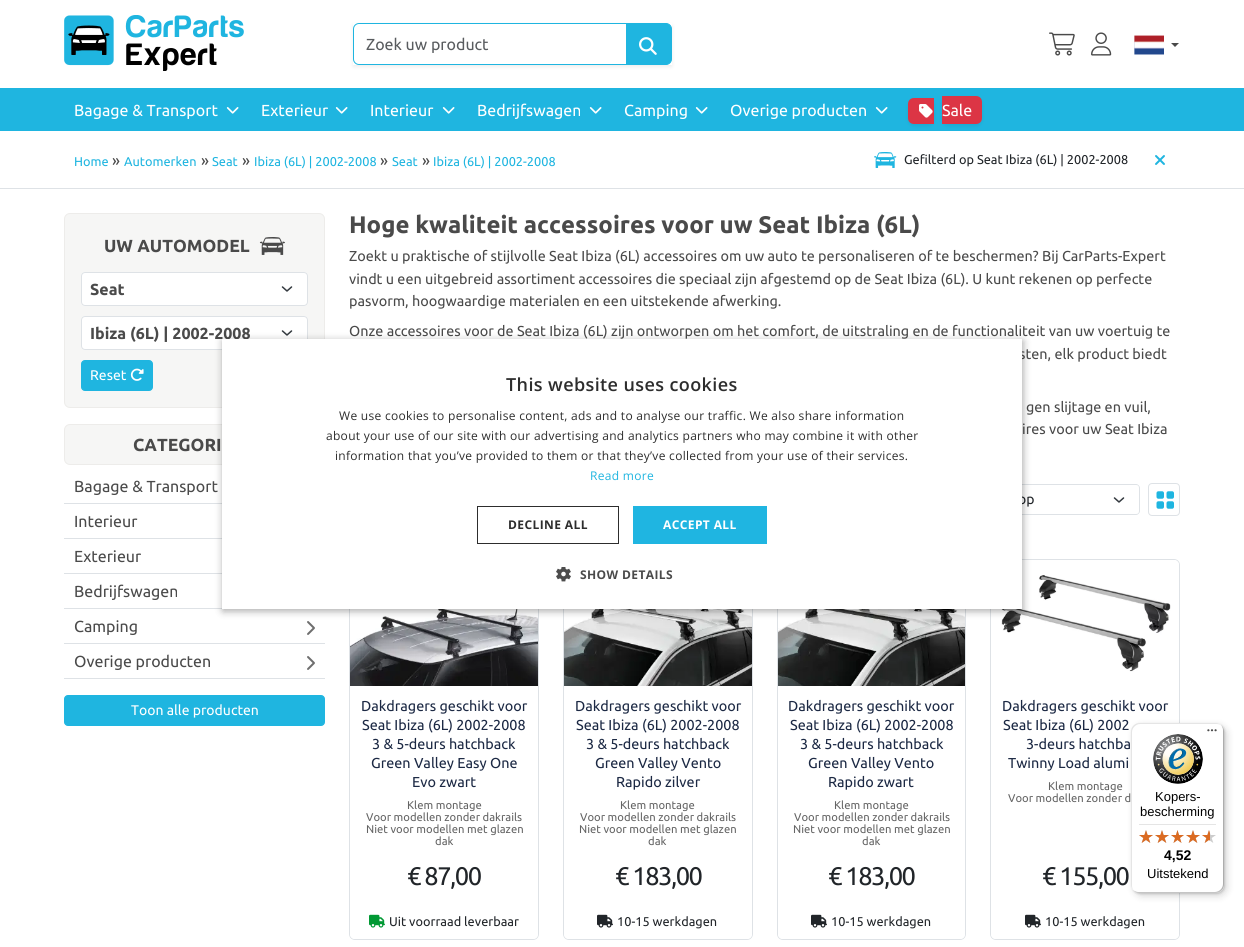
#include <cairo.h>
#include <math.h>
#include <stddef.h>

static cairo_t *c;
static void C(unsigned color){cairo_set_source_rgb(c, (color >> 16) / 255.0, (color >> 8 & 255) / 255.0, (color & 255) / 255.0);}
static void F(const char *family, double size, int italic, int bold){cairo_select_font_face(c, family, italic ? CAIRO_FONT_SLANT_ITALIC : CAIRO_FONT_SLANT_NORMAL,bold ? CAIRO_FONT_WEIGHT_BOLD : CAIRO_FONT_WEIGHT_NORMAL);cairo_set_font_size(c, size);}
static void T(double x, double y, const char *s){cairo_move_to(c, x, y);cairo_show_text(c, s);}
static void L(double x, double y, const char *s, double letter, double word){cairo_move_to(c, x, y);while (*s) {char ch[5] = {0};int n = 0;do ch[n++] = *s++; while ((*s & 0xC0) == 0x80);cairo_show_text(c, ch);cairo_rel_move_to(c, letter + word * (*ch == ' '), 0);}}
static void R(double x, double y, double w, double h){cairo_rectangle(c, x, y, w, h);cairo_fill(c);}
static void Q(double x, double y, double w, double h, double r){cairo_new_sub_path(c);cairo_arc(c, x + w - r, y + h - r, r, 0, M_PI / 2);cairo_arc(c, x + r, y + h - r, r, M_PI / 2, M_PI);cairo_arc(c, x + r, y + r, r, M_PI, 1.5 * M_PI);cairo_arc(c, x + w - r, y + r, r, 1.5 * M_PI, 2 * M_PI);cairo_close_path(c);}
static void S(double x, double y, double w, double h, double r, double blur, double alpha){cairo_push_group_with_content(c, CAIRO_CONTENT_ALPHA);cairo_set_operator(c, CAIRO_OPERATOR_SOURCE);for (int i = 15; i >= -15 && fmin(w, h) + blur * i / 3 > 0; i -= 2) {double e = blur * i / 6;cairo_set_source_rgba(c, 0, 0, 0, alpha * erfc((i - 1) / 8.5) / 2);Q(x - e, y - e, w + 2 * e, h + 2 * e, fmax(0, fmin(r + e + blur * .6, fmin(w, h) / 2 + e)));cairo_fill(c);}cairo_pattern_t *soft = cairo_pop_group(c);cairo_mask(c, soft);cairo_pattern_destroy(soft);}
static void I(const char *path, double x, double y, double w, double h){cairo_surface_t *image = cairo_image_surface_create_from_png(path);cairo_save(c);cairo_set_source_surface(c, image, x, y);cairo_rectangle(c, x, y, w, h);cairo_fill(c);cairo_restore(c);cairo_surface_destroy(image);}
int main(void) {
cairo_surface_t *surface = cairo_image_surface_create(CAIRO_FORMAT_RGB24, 1244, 947);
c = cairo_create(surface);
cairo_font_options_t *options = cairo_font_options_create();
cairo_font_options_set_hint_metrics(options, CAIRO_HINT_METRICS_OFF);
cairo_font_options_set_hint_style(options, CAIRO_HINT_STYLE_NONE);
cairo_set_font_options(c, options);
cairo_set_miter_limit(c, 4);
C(0xffffff);
cairo_paint(c);
C(0xdee2e6);
R(0,188,1244,1);
I("1.png",64,15,180,56);
cairo_save(c);
cairo_set_fill_rule(c,CAIRO_FILL_RULE_EVEN_ODD);
cairo_new_path(c);
cairo_move_to(c,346,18);
cairo_line_to(c,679,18);
cairo_line_to(c,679,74);
cairo_line_to(c,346,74);
cairo_close_path(c);
cairo_move_to(c,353,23);
cairo_line_to(c,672,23);
cairo_line_to(c,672,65);
cairo_line_to(c,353,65);
cairo_close_path(c);
cairo_clip(c);
C(0x000000);
S(353,25,319,42,0,2,.07);
cairo_restore(c);
cairo_new_path(c);
cairo_move_to(c,359,23.5);
cairo_line_to(c,626.5,23.5);
cairo_line_to(c,626.5,64.5);
cairo_line_to(c,359,64.5);
cairo_curve_to(c,356,64.5,353.5,62,353.5,59);
cairo_line_to(c,353.5,29);
cairo_curve_to(c,353.5,26,356,23.5,359,23.5);
cairo_close_path(c);
C(0x1fb5e0);
cairo_set_line_width(c,1);
cairo_stroke(c);
F("Ubuntu",16,0,0);
C(0x595c5f);
T(366,50,"Zoek uw product");
C(0x1fb5e0);
cairo_new_path(c);
cairo_move_to(c,626.5,23.5);
cairo_line_to(c,666,23.5);
cairo_curve_to(c,669,23.5,671.5,26,671.5,29);
cairo_line_to(c,671.5,59);
cairo_curve_to(c,671.5,62,669,64.5,666,64.5);
cairo_line_to(c,626.5,64.5);
cairo_close_path(c);
cairo_fill_preserve(c);
cairo_stroke(c);
I("2.png",639,37,18,18);
I("3.png",1049,32,26,24);
I("4.png",1091,32,21,24);
I("5.png",1134,35,30,20);
C(0x4a4a4a);
cairo_new_path(c);
cairo_move_to(c,1171,43);
cairo_line_to(c,1179,43);
cairo_line_to(c,1175,47);
cairo_close_path(c);
cairo_fill(c);
C(0x1fb5e0);
R(0,88,1244,43);
C(0xffffff);
T(74,116,"Bagage & Transport");
I("6.png",226,107,13,7);
T(261,116,"Exterieur");
I("6.png",335,107,13,7);
T(370,116,"Interieur");
I("6.png",442,107,13,7);
T(477,116,"Bedrijfswagen");
I("6.png",589,107,13,7);
T(624,116,"Camping");
I("6.png",695,107,13,7);
T(730,116,"Overige producten");
I("6.png",875,107,13,7);
C(0x000000);
S(908,100,26,26,6,2,.07);
C(0xdc3545);
cairo_new_path(c);
cairo_move_to(c,914,98);
cairo_line_to(c,934,98);
cairo_line_to(c,934,124);
cairo_line_to(c,914,124);
cairo_curve_to(c,910.5,124,908,121.5,908,118);
cairo_line_to(c,908,104);
cairo_curve_to(c,908,100.5,910.5,98,914,98);
cairo_close_path(c);
cairo_fill(c);
C(0x000000);
S(942,98,40,28,6,2,.07);
C(0xdc3545);
cairo_new_path(c);
cairo_move_to(c,942,96);
cairo_line_to(c,976,96);
cairo_curve_to(c,979.5,96,982,98.5,982,102);
cairo_line_to(c,982,118);
cairo_curve_to(c,982,121.5,979.5,124,976,124);
cairo_line_to(c,942,124);
cairo_close_path(c);
cairo_fill(c);
I("7.png",919,104,14,14);
C(0xffffff);
T(942,116,"Sale");
F("Ubuntu",12.75,0,0);
C(0x1fb5e0);
T(74,166,"Home");
F("Ubuntu",16,0,0);
C(0x4a4a4a);
T(112,166,"»");
F("Ubuntu",12.75,0,0);
C(0x1fb5e0);
T(124,166,"Automerken");
F("Ubuntu",16,0,0);
C(0x4a4a4a);
T(201,166,"»");
F("Ubuntu",12.75,0,0);
C(0x1fb5e0);
T(212,166,"Seat");
F("Ubuntu",16,0,0);
C(0x4a4a4a);
T(242,166,"»");
F("Ubuntu",12.75,0,0);
C(0x1fb5e0);
T(254,166,"Ibiza (6L) | 2002-2008");
F("Ubuntu",16,0,0);
C(0x4a4a4a);
T(380,166,"»");
F("Ubuntu",12.75,0,0);
C(0x1fb5e0);
T(392,166,"Seat");
F("Ubuntu",16,0,0);
C(0x4a4a4a);
T(422,166,"»");
F("Ubuntu",12.75,0,0);
C(0x1fb5e0);
T(433,166,"Ibiza (6L) | 2002-2008");
I("8.png",874,152,23,16);
C(0x212529);
T(904,164,"Gefilterd op Seat Ibiza (6L) | 2002-2008");
I("9.png",1155,155,10,10);
C(0xf6f6f5);
Q(64.5,213.5,260,194,5.5);
cairo_fill_preserve(c);
C(0xedecea);
cairo_stroke(c);
F("Ubuntu",17.5,0,1);
C(0x4a4a4a);
T(104,252,"UW AUTOMODEL");
I("10.png",259,237,26,18);
C(0xffffff);
Q(81,272,227,34,4);
cairo_fill(c);
cairo_new_path(c);
cairo_move_to(c,282.5,287);
cairo_line_to(c,287,291);
cairo_line_to(c,291.5,287);
C(0x343a40);
cairo_set_line_width(c,1.5);
cairo_set_line_cap(c,CAIRO_LINE_CAP_ROUND);
cairo_set_line_join(c,CAIRO_LINE_JOIN_ROUND);
cairo_stroke(c);
Q(81.5,272.5,226,33,3.5);
C(0xdee2e6);
cairo_set_line_width(c,1);
cairo_set_line_cap(c,CAIRO_LINE_CAP_BUTT);
cairo_set_line_join(c,CAIRO_LINE_JOIN_MITER);
cairo_stroke(c);
F("Ubuntu",16,0,1);
C(0x4a4a4a);
T(90,295,"Seat");
C(0xffffff);
Q(81,316,227,34,4);
cairo_fill(c);
cairo_new_path(c);
cairo_move_to(c,282.5,331);
cairo_line_to(c,287,335);
cairo_line_to(c,291.5,331);
C(0x343a40);
cairo_set_line_width(c,1.5);
cairo_set_line_cap(c,CAIRO_LINE_CAP_ROUND);
cairo_set_line_join(c,CAIRO_LINE_JOIN_ROUND);
cairo_stroke(c);
Q(81.5,316.5,226,33,3.5);
C(0xdee2e6);
cairo_set_line_width(c,1);
cairo_set_line_cap(c,CAIRO_LINE_CAP_BUTT);
cairo_set_line_join(c,CAIRO_LINE_JOIN_MITER);
cairo_stroke(c);
C(0x4a4a4a);
T(90,339,"Ibiza (6L) | 2002-2008");
C(0x1fb5e0);
Q(81.5,360.5,71,30,3.5);
cairo_fill_preserve(c);
cairo_stroke(c);
F("Ubuntu",14,0,0);
C(0xffffff);
T(90,380,"Reset");
I("11.png",130,368,14,13);
C(0xf6f6f5);
Q(64.5,424.5,260,40,5.5);
cairo_fill_preserve(c);
C(0xedecea);
cairo_stroke(c);
F("Ubuntu",17.5,0,1);
C(0x4a4a4a);
T(133,451,"CATEGORI");
C(0xdee2e6);
R(64,503,158,1);
F("Ubuntu",16,0,0);
C(0x4a4a4a);
T(74,492,"Bagage & Transport");
C(0xdee2e6);
R(64,538,158,1);
C(0x4a4a4a);
T(74,527,"Interieur");
C(0xdee2e6);
R(64,573,158,1);
C(0x4a4a4a);
T(74,562,"Exterieur");
C(0xdee2e6);
R(64,608,158,1);
C(0x4a4a4a);
T(74,597,"Bedrijfswagen");
C(0xdee2e6);
R(64,643,261,1);
C(0x4a4a4a);
T(74,632,"Camping");
I("12.png",307,621,8,14);
C(0xdee2e6);
R(64,678,261,1);
C(0x4a4a4a);
T(74,667,"Overige producten");
I("12.png",307,656,8,14);
C(0x1fb5e0);
Q(64.5,695.5,260,30,3.5);
cairo_fill_preserve(c);
cairo_stroke(c);
F("Ubuntu",14,0,0);
C(0xffffff);
T(131,715,"Toon alle producten");
F("Ubuntu",24,0,1);
C(0x4a4a4a);
T(349,233,"Hoge kwaliteit accessoires voor uw Seat Ibiza (6L)");
F("Ubuntu",14.4,0,0);
T(349,261,"Zoekt u praktische of stijlvolle Seat Ibiza (6L) accessoires om uw auto te personaliseren of te beschermen? Bij CarParts-Expert");
T(349,284,"vindt u een uitgebreid assortiment accessoires die speciaal zijn afgestemd op de Seat Ibiza (6L). U kunt rekenen op perfecte");
T(349,306,"pasvorm, hoogwaardige materialen en een uitstekende afwerking.");
T(349,336,"Onze accessoires voor de Seat Ibiza (6L) zijn ontworpen om het comfort, de uitstraling en de functionaliteit van uw voertuig te");
T(1019,359,"sten, elk product biedt");
T(1026,412,"gen slijtage en vuil,");
T(1022,434,"ires voor uw Seat Ibiza");
cairo_new_path(c);
cairo_move_to(c,1114.5,498);
cairo_line_to(c,1119,502);
cairo_line_to(c,1123.5,498);
C(0x343a40);
cairo_set_line_width(c,1.5);
cairo_set_line_cap(c,CAIRO_LINE_CAP_ROUND);
cairo_set_line_join(c,CAIRO_LINE_JOIN_ROUND);
cairo_stroke(c);
C(0xdee2e6);
cairo_set_fill_rule(c,CAIRO_FILL_RULE_EVEN_ODD);
cairo_new_path(c);
cairo_move_to(c,951,484);
cairo_line_to(c,1136,484);
cairo_curve_to(c,1138,484,1140,486,1140,488);
cairo_line_to(c,1140,511);
cairo_curve_to(c,1140,513,1138,515,1136,515);
cairo_line_to(c,951,515);
cairo_close_path(c);
cairo_move_to(c,951,485);
cairo_line_to(c,1136,485);
cairo_curve_to(c,1138,485,1139,486,1139,488);
cairo_line_to(c,1139,511);
cairo_curve_to(c,1139,513,1138,514,1136,514);
cairo_line_to(c,951,514);
cairo_close_path(c);
cairo_fill(c);
F("Ubuntu",14,0,0);
C(0x212529);
T(1018,504,"op");
Q(1148.5,483.5,31,32,3.5);
C(0xdee2e6);
cairo_set_line_width(c,1);
cairo_set_line_cap(c,CAIRO_LINE_CAP_BUTT);
cairo_set_line_join(c,CAIRO_LINE_JOIN_MITER);
cairo_stroke(c);
I("13.png",1156,491,18,18);
Q(349.5,559.5,189,380,5.5);
cairo_stroke(c);
I("14.png",350,609,188,77);
F("Ubuntu",14.4,0,0);
C(0x1c2944);
T(361,711,"Dakdragers geschikt voor");
T(362,730,"Seat Ibiza (6L) 2002-2008");
T(372,749,"3 & 5-deurs hatchback");
T(371,768,"Green Valley Easy One");
T(412,787,"Evo zwart");
F("Ubuntu",11.25,0,0);
C(0x646464);
T(407,809,"Klem montage");
T(366,821,"Voor modellen zonder dakrails");
T(366,833,"Niet voor modellen met glazen");
T(435,845,"dak");
C(0xffffff);
cairo_new_path(c);
cairo_move_to(c,350,857);
cairo_line_to(c,538,857);
cairo_line_to(c,538,934);
cairo_curve_to(c,538,937,536,939,533,939);
cairo_line_to(c,355,939);
cairo_curve_to(c,352,939,350,937,350,934);
cairo_close_path(c);
cairo_fill(c);
F("Ubuntu",25.5,0,0);
C(0x212529);
L(407,885,"€ 87,00",-1.5,0);
I("15.png",369,914,16,14);
F("Ubuntu",12.75,0,0);
T(389,926,"Uit voorraad leverbaar");
Q(563.5,559.5,189,380,5.5);
C(0xdee2e6);
cairo_stroke(c);
I("16.png",564,609,188,77);
F("Ubuntu",14.4,0,0);
C(0x1c2944);
T(575,711,"Dakdragers geschikt voor");
T(576,730,"Seat Ibiza (6L) 2002-2008");
T(586,749,"3 & 5-deurs hatchback");
T(595,768,"Green Valley Vento");
T(616,787,"Rapido zilver");
F("Ubuntu",11.25,0,0);
C(0x646464);
T(620,809,"Klem montage");
T(580,821,"Voor modellen zonder dakrails");
T(579,833,"Niet voor modellen met glazen");
T(648,845,"dak");
C(0xffffff);
cairo_new_path(c);
cairo_move_to(c,564,857);
cairo_line_to(c,752,857);
cairo_line_to(c,752,934);
cairo_curve_to(c,752,937,750,939,747,939);
cairo_line_to(c,569,939);
cairo_curve_to(c,566,939,564,937,564,934);
cairo_close_path(c);
cairo_fill(c);
F("Ubuntu",25.5,0,0);
C(0x212529);
L(615,885,"€ 183,00",-1.5,0);
I("17.png",597,914,16,14);
F("Ubuntu",12.75,0,0);
T(617,926,"10-15 werkdagen");
Q(777.5,559.5,188,380,5.5);
C(0xdee2e6);
cairo_stroke(c);
I("18.png",778,609,187,77);
F("Ubuntu",14.4,0,0);
C(0x1c2944);
T(788,711,"Dakdragers geschikt voor");
T(790,730,"Seat Ibiza (6L) 2002-2008");
T(800,749,"3 & 5-deurs hatchback");
T(808,768,"Green Valley Vento");
T(828,787,"Rapido zwart");
F("Ubuntu",11.25,0,0);
C(0x646464);
T(834,809,"Klem montage");
T(794,821,"Voor modellen zonder dakrails");
T(793,833,"Niet voor modellen met glazen");
T(862,845,"dak");
C(0xffffff);
cairo_new_path(c);
cairo_move_to(c,778,857);
cairo_line_to(c,965,857);
cairo_line_to(c,965,934);
cairo_curve_to(c,965,937,963,939,960,939);
cairo_line_to(c,783,939);
cairo_curve_to(c,780,939,778,937,778,934);
cairo_close_path(c);
cairo_fill(c);
F("Ubuntu",25.5,0,0);
C(0x212529);
L(828,885,"€ 183,00",-1.5,0);
I("17.png",811,914,16,14);
F("Ubuntu",12.75,0,0);
T(831,926,"10-15 werkdagen");
Q(990.5,559.5,189,380,5.5);
C(0xdee2e6);
cairo_stroke(c);
I("19.png",991,560,188,112);
F("Ubuntu",14.4,0,0);
C(0x1c2944);
T(1002,711,"Dakdragers geschikt voor");
T(1003,730,"Seat Ibiza (6L) 2002");
T(1026,749,"3-deurs hatchba");
T(1008,768,"Twinny Load alumi");
F("Ubuntu",11.25,0,0);
C(0x646464);
T(1048,790,"Klem montage");
T(1008,802,"Voor modellen zonder d");
C(0xffffff);
cairo_new_path(c);
cairo_move_to(c,991,857);
cairo_line_to(c,1179,857);
cairo_line_to(c,1179,934);
cairo_curve_to(c,1179,937,1177,939,1174,939);
cairo_line_to(c,996,939);
cairo_curve_to(c,993,939,991,937,991,934);
cairo_close_path(c);
cairo_fill(c);
F("Ubuntu",25.5,0,0);
C(0x212529);
L(1042,885,"€ 155,00",-1.5,0);
I("17.png",1025,914,16,14);
F("Ubuntu",12.75,0,0);
T(1045,926,"10-15 werkdagen");
C(0x000000);
S(223,341,800,270,0,4,.35);
C(0xffffff);
R(222,339,800,270);
F("Open Sans SemiBold",18,0,0);
C(0x2d2d2d);
L(506,391,"This website uses cookies",.4,0);
F("Open Sans",12,0,0);
L(339,420,"We use cookies to personalise content, ads and to analyse our traffic. We also share information",.3,0);
L(326,440,"about your use of our site with our advertising and analytics partners who may combine it with other",.3,0);
L(335,460,"information that you’ve provided to them or that they’ve collected from your use of their services.",.3,0);
C(0x1fb5e0);
L(590,480,"Read more",.3,0);
cairo_rectangle(c,477.5,506.5,141,37);
C(0x2d2d2d);
cairo_stroke(c);
F("Open Sans",12,0,1);
L(508,529,"DECLINE ALL",.4,0);
C(0x1fb5e1);
R(633,506,134,38);
C(0xffffff);
L(663,529,"ACCEPT ALL",.4,0);
I("20.png",556,567,15,15);
C(0x4a4a4a);
L(580,579,"SHOW DETAILS",.4,0);
C(0x000000);
S(1134,726,93,170,8,4,.15);
S(1132,724,93,170,8,1,.15);
C(0xffffff);
Q(1131,723,93,170,8);
cairo_fill(c);
C(0xe5e5e5);
cairo_set_fill_rule(c,CAIRO_FILL_RULE_WINDING);
cairo_new_path(c);
cairo_move_to(c,1140,724);
cairo_line_to(c,1217,724);
cairo_curve_to(c,1219,724,1221,725,1223,727);
cairo_curve_to(c,1221,725,1219,723,1216,723);
cairo_line_to(c,1139,723);
cairo_curve_to(c,1135,723,1131,727,1131,731);
cairo_line_to(c,1131,885);
cairo_curve_to(c,1131,888,1133,890,1135,892);
cairo_curve_to(c,1133,890,1132,888,1132,886);
cairo_line_to(c,1132,732);
cairo_curve_to(c,1132,728,1136,724,1140,724);
cairo_close_path(c);
cairo_fill(c);
C(0xcccccc);
cairo_new_path(c);
cairo_move_to(c,1132,889);
cairo_curve_to(c,1134,891,1136,893,1139,893);
cairo_line_to(c,1216,893);
cairo_curve_to(c,1220,893,1224,889,1224,885);
cairo_line_to(c,1224,731);
cairo_curve_to(c,1224,728,1222,726,1220,724);
cairo_curve_to(c,1222,726,1223,728,1223,730);
cairo_line_to(c,1223,884);
cairo_curve_to(c,1223,888,1219,892,1215,892);
cairo_line_to(c,1138,892);
cairo_curve_to(c,1136,892,1134,891,1132,889);
cairo_close_path(c);
cairo_fill(c);
cairo_set_source_rgba(c,0.196,0.196,0.196,0.2);
cairo_new_path(c);
cairo_move_to(c,1133,890);
cairo_curve_to(c,1134,892,1137,893,1139,893);
cairo_line_to(c,1216,893);
cairo_curve_to(c,1220,893,1224,889,1224,885);
cairo_line_to(c,1224,731);
cairo_curve_to(c,1224,729,1223,726,1221,725);
cairo_curve_to(c,1222,726,1223,728,1223,730);
cairo_line_to(c,1223,884);
cairo_curve_to(c,1223,889,1220,892,1215,892);
cairo_line_to(c,1138,892);
cairo_curve_to(c,1136,892,1134,891,1133,890);
cairo_close_path(c);
cairo_fill(c);
I("21.png",1207,729,10,3);
cairo_set_source_rgba(c,1,1,1,0.3);
cairo_new_path(c);
cairo_move_to(c,1133,890);
cairo_curve_to(c,1134,892,1137,893,1139,893);
cairo_line_to(c,1216,893);
cairo_curve_to(c,1220,893,1224,889,1224,885);
cairo_line_to(c,1224,884);
cairo_curve_to(c,1224,889,1220,892,1216,892);
cairo_line_to(c,1138,892);
cairo_curve_to(c,1136,892,1134,891,1133,890);
cairo_close_path(c);
cairo_fill(c);
I("22.png",1153,734,50,50);
F("Liberation Sans",13,0,0);
C(0x000000);
T(1155,801,"Kopers-");
T(1140,816,"bescherming");
C(0xe5e5e5);
R(1139,824,77,1);
I("23.png",1139,830,14,13);
I("23.png",1155,830,14,13);
I("24.png",1171,830,13,13);
I("23.png",1186,830,14,13);
I("23.png",1202,830,14,13);
I("25.png",1139,830,14,13);
I("25.png",1155,830,14,13);
I("26.png",1171,830,13,13);
I("25.png",1186,830,14,13);
I("27.png",1202,830,8,13);
F("Liberation Sans",14,0,1);
C(0x000000);
T(1164,860,"4,52");
F("Liberation Sans",13,0,0);
T(1147,878,"Uitstekend");
cairo_surface_write_to_png(surface, "o.png");
cairo_font_options_destroy(options);
cairo_destroy(c);
cairo_surface_destroy(surface);
return 0;
}
